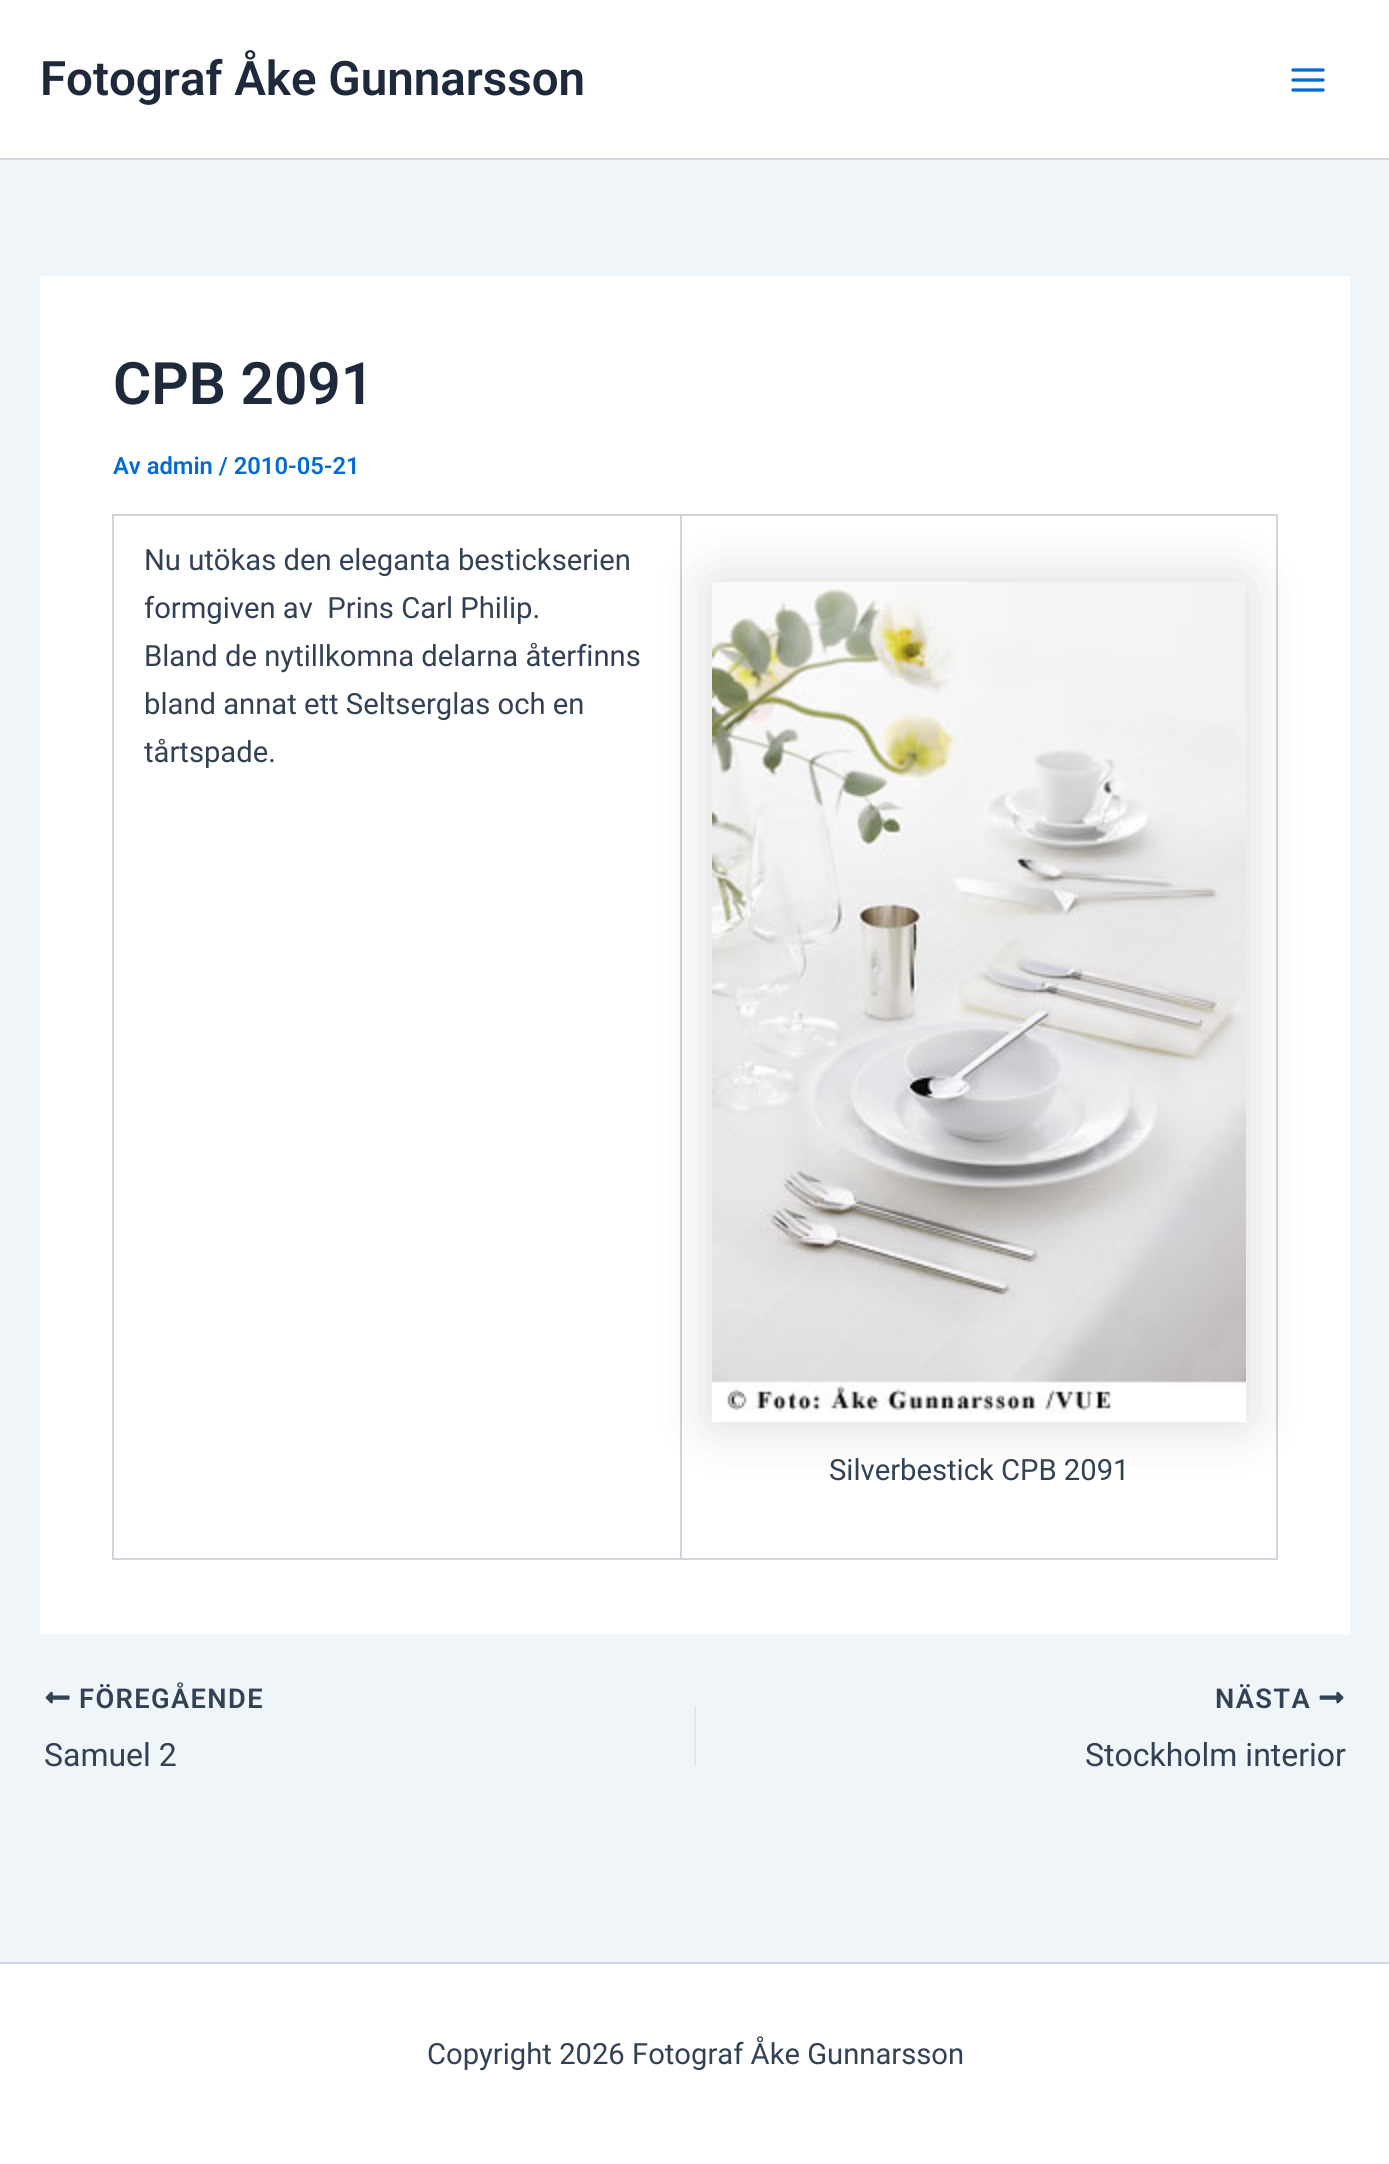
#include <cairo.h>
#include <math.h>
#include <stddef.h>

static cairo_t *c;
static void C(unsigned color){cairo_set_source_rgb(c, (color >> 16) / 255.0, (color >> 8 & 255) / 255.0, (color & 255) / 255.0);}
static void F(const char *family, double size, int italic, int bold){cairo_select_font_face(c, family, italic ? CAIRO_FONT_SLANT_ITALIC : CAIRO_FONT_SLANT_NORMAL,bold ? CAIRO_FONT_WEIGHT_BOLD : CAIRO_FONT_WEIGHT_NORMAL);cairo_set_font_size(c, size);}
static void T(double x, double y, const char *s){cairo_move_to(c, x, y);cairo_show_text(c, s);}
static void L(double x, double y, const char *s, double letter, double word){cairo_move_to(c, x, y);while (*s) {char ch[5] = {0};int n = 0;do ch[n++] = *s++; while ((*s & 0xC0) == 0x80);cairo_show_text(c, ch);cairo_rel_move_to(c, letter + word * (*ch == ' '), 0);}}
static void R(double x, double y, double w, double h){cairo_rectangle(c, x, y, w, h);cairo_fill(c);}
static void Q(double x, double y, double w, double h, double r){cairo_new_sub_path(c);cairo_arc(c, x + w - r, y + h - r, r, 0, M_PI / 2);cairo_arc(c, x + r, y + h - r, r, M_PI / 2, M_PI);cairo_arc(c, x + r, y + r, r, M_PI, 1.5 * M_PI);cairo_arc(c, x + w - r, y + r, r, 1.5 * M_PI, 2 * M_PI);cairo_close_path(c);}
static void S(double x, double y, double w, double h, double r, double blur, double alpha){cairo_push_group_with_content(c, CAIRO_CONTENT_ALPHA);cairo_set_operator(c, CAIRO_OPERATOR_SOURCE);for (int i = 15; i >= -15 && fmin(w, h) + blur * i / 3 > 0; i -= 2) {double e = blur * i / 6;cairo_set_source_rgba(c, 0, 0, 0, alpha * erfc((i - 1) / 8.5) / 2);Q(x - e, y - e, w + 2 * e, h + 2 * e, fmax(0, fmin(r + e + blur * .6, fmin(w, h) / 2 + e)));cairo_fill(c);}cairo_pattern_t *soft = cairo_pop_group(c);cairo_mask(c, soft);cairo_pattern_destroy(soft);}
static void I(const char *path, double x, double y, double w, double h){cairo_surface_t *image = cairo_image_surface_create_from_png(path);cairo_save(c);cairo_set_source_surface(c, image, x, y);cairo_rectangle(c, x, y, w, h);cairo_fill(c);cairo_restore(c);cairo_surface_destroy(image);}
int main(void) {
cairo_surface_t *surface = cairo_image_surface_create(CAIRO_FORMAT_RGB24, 1389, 2164);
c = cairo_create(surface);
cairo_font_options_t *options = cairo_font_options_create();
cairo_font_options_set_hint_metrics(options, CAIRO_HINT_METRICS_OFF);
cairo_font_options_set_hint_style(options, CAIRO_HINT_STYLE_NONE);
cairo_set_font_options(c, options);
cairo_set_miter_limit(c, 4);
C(0xf0f5fa);
cairo_paint(c);
C(0xffffff);
R(0,0,1389,158);
C(0xd1d5db);
R(0,158,1389,2);
F("Roboto SemiBold",47.5,0,0);
C(0x1e293b);
T(40,95,"Fotograf Åke Gunnarsson");
I("1.png",1291,68,34,24);
C(0xffffff);
R(40,276,1310,1358);
F("Roboto SemiBold",58.5,0,0);
C(0x1e293b);
T(113,404,"CPB 2091");
F("Roboto SemiBold",23.75,0,0);
C(0x046bd2);
T(113,474,"Av admin / 2010-05-21");
C(0xd1d5db);
R(112,514,1166,2);
R(112,514,2,1046);
R(680,516,2,1044);
R(114,1558,568,2);
R(1276,516,2,1044);
cairo_save(c);
cairo_set_fill_rule(c,CAIRO_FILL_RULE_EVEN_ODD);
cairo_new_path(c);
cairo_move_to(c,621,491);
cairo_line_to(c,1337,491);
cairo_line_to(c,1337,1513);
cairo_line_to(c,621,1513);
cairo_close_path(c);
cairo_move_to(c,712,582);
cairo_line_to(c,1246,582);
cairo_line_to(c,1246,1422);
cairo_line_to(c,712,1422);
cairo_close_path(c);
cairo_clip(c);
C(0x000000);
S(712,582,534,840,0,30,.15);
cairo_restore(c);
F("Roboto",29.2,0,0);
C(0x334155);
T(144,570,"Nu utökas den eleganta bestickserien");
T(144,618,"formgiven av  Prins Carl Philip.");
T(144,666,"Bland de nytillkomna delarna återfinns");
T(144,714,"bland annat ett Seltserglas och en");
T(144,762,"tårtspade.");
C(0xd1d5db);
R(682,1558,596,2);
I("2.png",712,582,534,832);
C(0x334155);
T(829,1480,"Silverbestick CPB 2091");
I("3.png",45,1691,25,13);
F("Roboto SemiBold",27.25,0,0);
L(79,1708,"FÖREGÅENDE",1.4,0);
F("Roboto",32,0,0);
T(44,1766,"Samuel 2");
C(0xe1e8ed);
R(694,1706,2,60);
F("Roboto SemiBold",27.25,0,0);
C(0x334155);
L(1215,1708,"NÄSTA",1.4,0);
I("4.png",1319,1691,25,13);
F("Roboto",32,0,0);
T(1085,1766,"Stockholm interior");
C(0xffffff);
R(0,1964,1389,200);
C(0xd1d5db);
R(0,1962,1389,2);
F("Roboto",29.2,0,0);
C(0x334155);
T(427,2064,"Copyright 2026 Fotograf Åke Gunnarsson");
cairo_surface_write_to_png(surface, "o.png");
cairo_font_options_destroy(options);
cairo_destroy(c);
cairo_surface_destroy(surface);
return 0;
}
